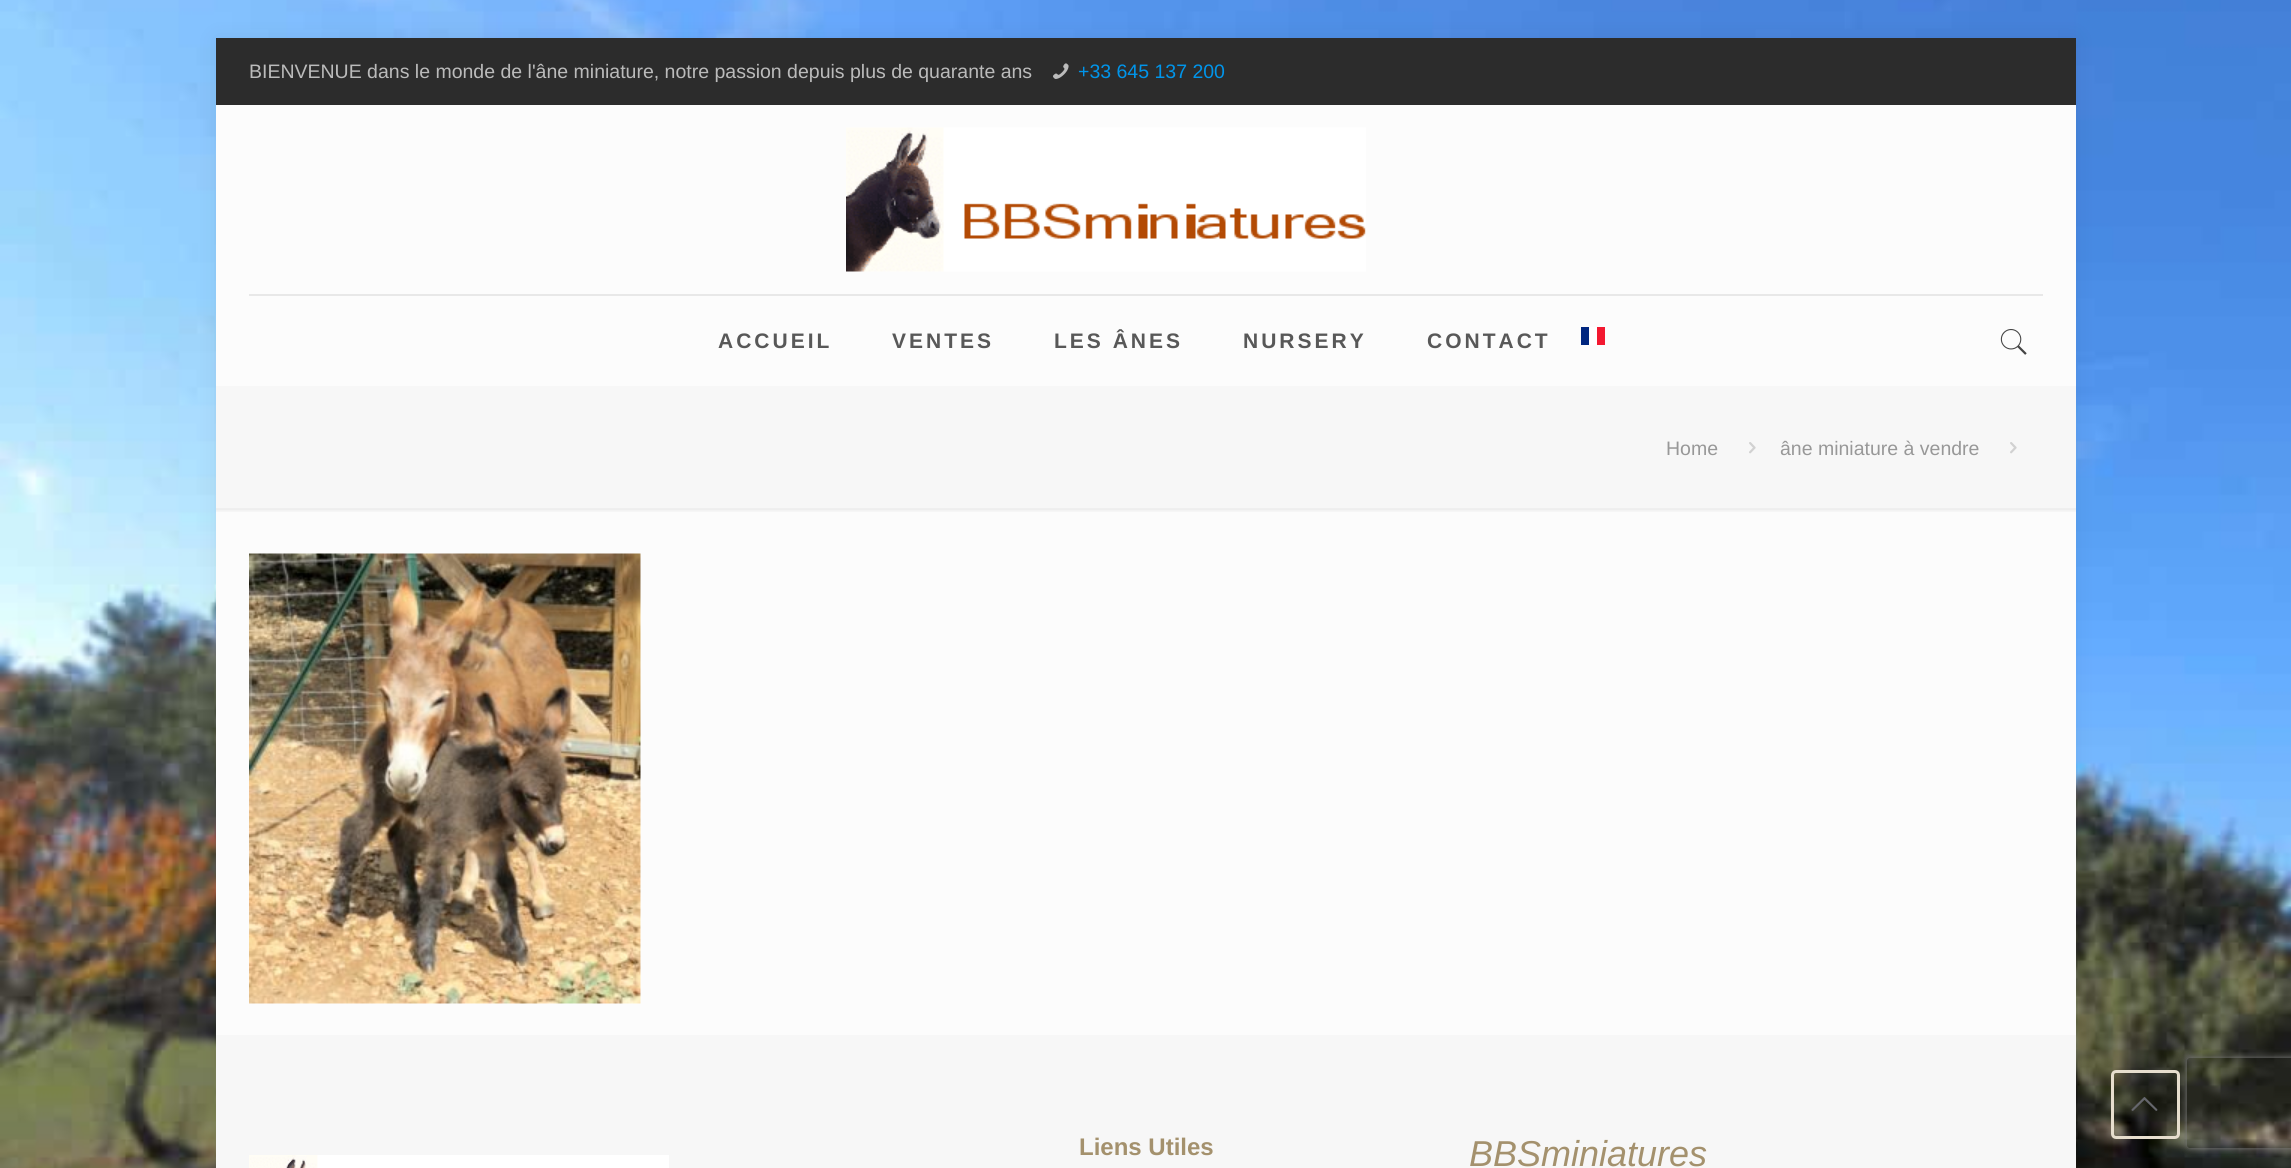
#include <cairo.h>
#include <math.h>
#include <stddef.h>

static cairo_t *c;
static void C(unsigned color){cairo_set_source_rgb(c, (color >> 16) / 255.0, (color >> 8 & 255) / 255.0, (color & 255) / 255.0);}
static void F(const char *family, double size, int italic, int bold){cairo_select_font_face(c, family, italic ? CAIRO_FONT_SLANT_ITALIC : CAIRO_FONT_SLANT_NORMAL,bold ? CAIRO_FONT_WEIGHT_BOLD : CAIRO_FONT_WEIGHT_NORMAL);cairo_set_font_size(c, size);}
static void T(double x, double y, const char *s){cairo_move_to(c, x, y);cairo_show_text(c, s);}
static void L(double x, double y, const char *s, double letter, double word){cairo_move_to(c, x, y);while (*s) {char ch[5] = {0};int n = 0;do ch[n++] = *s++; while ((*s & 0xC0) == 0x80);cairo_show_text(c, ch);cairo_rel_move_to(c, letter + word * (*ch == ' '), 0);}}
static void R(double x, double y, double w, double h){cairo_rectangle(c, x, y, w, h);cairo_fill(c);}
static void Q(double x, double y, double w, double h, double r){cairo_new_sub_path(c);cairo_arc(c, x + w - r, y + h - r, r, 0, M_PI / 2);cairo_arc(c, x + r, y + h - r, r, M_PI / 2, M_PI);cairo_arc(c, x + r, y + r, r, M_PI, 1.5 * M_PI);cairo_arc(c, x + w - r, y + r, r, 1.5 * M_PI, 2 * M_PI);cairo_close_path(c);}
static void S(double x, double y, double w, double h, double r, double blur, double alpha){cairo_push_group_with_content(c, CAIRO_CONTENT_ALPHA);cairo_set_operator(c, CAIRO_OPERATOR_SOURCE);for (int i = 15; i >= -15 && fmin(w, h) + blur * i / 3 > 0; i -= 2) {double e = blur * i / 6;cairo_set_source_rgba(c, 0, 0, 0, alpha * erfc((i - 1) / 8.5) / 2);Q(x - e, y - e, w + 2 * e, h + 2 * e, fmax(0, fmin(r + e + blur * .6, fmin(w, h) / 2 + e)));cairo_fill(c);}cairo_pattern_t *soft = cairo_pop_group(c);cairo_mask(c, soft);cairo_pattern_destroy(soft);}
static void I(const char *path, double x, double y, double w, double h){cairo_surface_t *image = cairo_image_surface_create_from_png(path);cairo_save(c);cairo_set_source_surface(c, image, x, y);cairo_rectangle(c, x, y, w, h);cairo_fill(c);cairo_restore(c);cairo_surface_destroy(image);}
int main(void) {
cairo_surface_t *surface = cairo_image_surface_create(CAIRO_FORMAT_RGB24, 2291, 1168);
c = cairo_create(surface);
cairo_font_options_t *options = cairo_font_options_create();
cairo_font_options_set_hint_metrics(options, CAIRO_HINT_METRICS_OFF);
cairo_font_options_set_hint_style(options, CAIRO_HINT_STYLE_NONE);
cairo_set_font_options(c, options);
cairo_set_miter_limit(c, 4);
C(0xffffff);
cairo_paint(c);
I("1.png",0,0,2291,1168);
C(0x000000);
S(216,38,1860,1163,0,11,.06);
C(0xfcfcfc);
R(216,509,1860,526);
C(0x2c2c2c);
R(216,38,1860,67);
F("Liberation Sans",19.5,0,0);
C(0xbbbbbb);
T(249,78,"BIENVENUE dans le monde de l'âne miniature, notre passion depuis plus de quarante ans");
I("2.png",1053,63,16,16);
C(0x0095eb);
T(1078,78,"+33 645 137 200");
C(0xfcfcfc);
R(216,105,1860,281);
C(0xe8e8e8);
R(249,294,1794,2);
I("3.png",846,127,520,145);
F("Liberation Sans",21,0,1);
C(0x585858);
L(718,348,"ACCUEIL",3,0);
L(892,348,"VENTES",3,0);
L(1054,348,"LES ÂNES",3,0);
L(1243,348,"NURSERY",3,0);
L(1427,348,"CONTACT",3,0);
C(0x00267f);
R(1581,327,8,18);
C(0xffffff);
R(1589,327,8,18);
C(0xf31830);
R(1597,327,8,18);
I("4.png",2000,329,27,26);
C(0xf7f7f7);
R(216,386,1860,123);
F("Liberation Sans",19.5,0,0);
C(0x989898);
T(1666,455,"Home");
I("5.png",1749,442,7,12);
T(1780,455,"âne miniature à vendre");
I("5.png",2010,442,7,12);
I("6.png",216,508,1860,4);
I("7.png",249,553,392,451);
C(0xf7f7f7);
R(216,1035,1860,133);
I("8.png",249,1155,420,13);
F("Liberation Sans",24,0,1);
C(0xa4916d);
T(1079,1155,"Liens Utiles");
F("Liberation Sans",36,1,0);
T(1469,1166,"BBSminiatures");
cairo_save(c);
cairo_set_fill_rule(c,CAIRO_FILL_RULE_EVEN_ODD);
cairo_new_path(c);
cairo_move_to(c,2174,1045);
cairo_line_to(c,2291,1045);
cairo_line_to(c,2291,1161);
cairo_line_to(c,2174,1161);
cairo_close_path(c);
cairo_move_to(c,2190,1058);
cairo_line_to(c,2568,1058);
cairo_curve_to(c,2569.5,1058,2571,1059.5,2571,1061);
cairo_line_to(c,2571,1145);
cairo_curve_to(c,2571,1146.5,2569.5,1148,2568,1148);
cairo_line_to(c,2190,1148);
cairo_curve_to(c,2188.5,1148,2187,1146.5,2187,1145);
cairo_line_to(c,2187,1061);
cairo_curve_to(c,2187,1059.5,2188.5,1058,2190,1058);
cairo_close_path(c);
cairo_clip(c);
C(0x808080);
S(2187,1058,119,90,3,4,1);
cairo_restore(c);
Q(2112.5,1071.5,66,66,3.5);
C(0xe7dece);
cairo_set_line_width(c,3);
cairo_stroke(c);
I("9.png",2131,1097,27,14);
cairo_surface_write_to_png(surface, "o.png");
cairo_font_options_destroy(options);
cairo_destroy(c);
cairo_surface_destroy(surface);
return 0;
}
